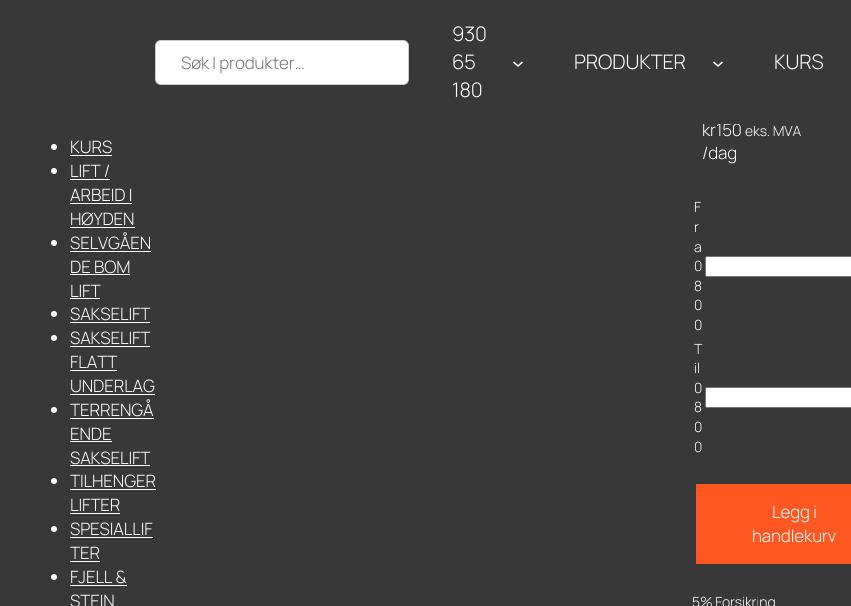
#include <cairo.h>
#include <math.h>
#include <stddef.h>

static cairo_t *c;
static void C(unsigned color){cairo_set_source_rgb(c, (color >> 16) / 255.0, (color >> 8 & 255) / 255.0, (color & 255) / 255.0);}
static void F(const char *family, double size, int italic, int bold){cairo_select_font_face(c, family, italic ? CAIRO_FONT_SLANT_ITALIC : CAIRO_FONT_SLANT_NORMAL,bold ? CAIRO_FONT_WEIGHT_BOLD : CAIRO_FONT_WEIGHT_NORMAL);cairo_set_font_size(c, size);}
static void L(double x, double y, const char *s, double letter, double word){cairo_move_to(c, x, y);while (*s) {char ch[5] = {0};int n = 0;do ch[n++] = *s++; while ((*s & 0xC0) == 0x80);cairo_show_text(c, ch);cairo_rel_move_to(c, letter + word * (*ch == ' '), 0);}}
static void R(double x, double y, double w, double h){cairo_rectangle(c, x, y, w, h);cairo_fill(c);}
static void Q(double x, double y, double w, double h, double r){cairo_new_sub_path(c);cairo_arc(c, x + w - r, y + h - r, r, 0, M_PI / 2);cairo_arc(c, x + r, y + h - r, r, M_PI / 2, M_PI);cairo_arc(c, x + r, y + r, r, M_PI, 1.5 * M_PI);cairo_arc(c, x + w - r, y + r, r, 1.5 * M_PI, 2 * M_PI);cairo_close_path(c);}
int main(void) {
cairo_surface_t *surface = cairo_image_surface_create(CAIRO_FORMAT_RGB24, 851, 606);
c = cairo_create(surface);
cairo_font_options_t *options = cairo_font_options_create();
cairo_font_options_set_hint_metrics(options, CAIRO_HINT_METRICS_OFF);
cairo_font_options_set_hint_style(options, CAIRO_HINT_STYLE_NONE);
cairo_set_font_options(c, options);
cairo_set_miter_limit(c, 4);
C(0x383838);
cairo_paint(c);
F("Manrope Light",17,0,0);
C(0xffffff);
L(702,136,"kr150",-.1,0);
C(0x383838);
R(702,123,37,1);
C(0xffffff);
Q(155,40,254,45,6);
cairo_fill(c);
Q(155.5,40.5,253,44,5.5);
cairo_set_source_rgba(c,0,0,0,0.2);
cairo_set_line_width(c,1);
cairo_stroke(c);
C(0x757575);
L(181,69,"Søk I produkter…",-.1,0);
F("Manrope Light",20,0,0);
C(0xffffff);
L(452,41,"930",-.1,0);
L(452,69,"65",-.1,0);
L(452,97,"180",-.1,0);
cairo_new_path(c);
cairo_move_to(c,513.5,62);
cairo_line_to(c,518,66);
cairo_line_to(c,522.5,62);
cairo_set_line_width(c,1.5);
cairo_stroke(c);
L(574,69,"PRODUKTER",-.1,0);
cairo_new_path(c);
cairo_move_to(c,713.5,62);
cairo_line_to(c,718,66);
cairo_line_to(c,722.5,62);
cairo_stroke(c);
L(774,69,"KURS",-.1,0);
cairo_new_path(c);
cairo_arc(c,54,147,3,0,2 * M_PI);
cairo_fill(c);
F("Manrope Light",17,0,0);
L(70,153,"KURS",-.1,0);
R(70,155,42,1);
cairo_new_path(c);
cairo_arc(c,54,171,3,0,2 * M_PI);
cairo_fill(c);
L(70,177,"LIFT /",-.1,0);
R(70,179,40,1);
L(70,201,"ARBEID I",-.1,0);
R(70,203,62,1);
L(70,225,"HØYDEN",-.1,0);
R(70,227,65,1);
cairo_new_path(c);
cairo_arc(c,54,243,3,0,2 * M_PI);
cairo_fill(c);
L(70,249,"SELVGÅEN",-.1,0);
R(70,251,81,1);
L(70,273,"DE BOM",-.1,0);
R(70,274,60,1);
L(70,297,"LIFT",-.1,0);
R(70,298,30,1);
cairo_new_path(c);
cairo_arc(c,54,314,3,0,2 * M_PI);
cairo_fill(c);
L(70,320,"SAKSELIFT",-.1,0);
R(70,322,80,1);
cairo_new_path(c);
cairo_arc(c,54,338,3,0,2 * M_PI);
cairo_fill(c);
L(70,344,"SAKSELIFT",-.1,0);
R(70,346,80,1);
L(70,368,"FLATT",-.1,0);
R(70,370,47,1);
L(70,392,"UNDERLAG",-.1,0);
R(70,394,85,1);
cairo_new_path(c);
cairo_arc(c,54,410,3,0,2 * M_PI);
cairo_fill(c);
L(70,416,"TERRENGÅ",-.1,0);
R(70,418,84,1);
L(70,440,"ENDE",-.1,0);
R(70,441,42,1);
L(70,464,"SAKSELIFT",-.1,0);
R(70,465,80,1);
cairo_new_path(c);
cairo_arc(c,54,481,3,0,2 * M_PI);
cairo_fill(c);
L(70,487,"TILHENGER",-.1,0);
R(70,489,86,1);
L(70,511,"LIFTER",-.1,0);
R(70,513,50,1);
cairo_new_path(c);
cairo_arc(c,54,529,3,0,2 * M_PI);
cairo_fill(c);
L(70,535,"SPESIALLIF",-.1,0);
R(70,537,83,1);
L(70,559,"TER",-.1,0);
R(70,561,30,1);
cairo_new_path(c);
cairo_arc(c,54,577,3,0,2 * M_PI);
cairo_fill(c);
L(70,583,"FJELL &",-.1,0);
R(70,585,57,1);
L(70,607,"STEIN",-.1,0);
F("Manrope Light",14,0,0);
L(745,136,"eks. MVA",-.1,0);
F("Manrope Light",17,0,0);
L(702,159,"/dag",-.1,0);
F("Manrope Light",14,0,0);
L(694,212,"F",-.1,0);
L(694,232,"r",-.1,0);
L(694,252,"a",-.1,0);
L(694,271,"0",-.1,0);
L(694,291,"8",-.1,0);
L(694,310,"0",-.1,0);
L(694,330,"0",-.1,0);
Q(705.5,256.5,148,20,1.5);
cairo_fill_preserve(c);
C(0x767676);
cairo_set_line_width(c,1);
cairo_stroke(c);
C(0xffffff);
L(694,354,"T",-.1,0);
L(694,373,"il",-.1,0);
L(694,393,"0",-.1,0);
L(694,412,"8",-.1,0);
L(694,432,"0",-.1,0);
L(694,452,"0",-.1,0);
Q(705.5,387.5,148,20,1.5);
cairo_fill_preserve(c);
C(0x767676);
cairo_stroke(c);
C(0xff5722);
R(696,484,155,80);
F("Manrope Light",17,0,0);
C(0xffffff);
L(772,518,"Legg i",-.1,0);
L(752,542,"handlekurv",-.1,0);
F("Manrope Light",14,0,0);
L(692,607,"5% Forsikring",-.1,0);
cairo_surface_write_to_png(surface, "o.png");
cairo_font_options_destroy(options);
cairo_destroy(c);
cairo_surface_destroy(surface);
return 0;
}
